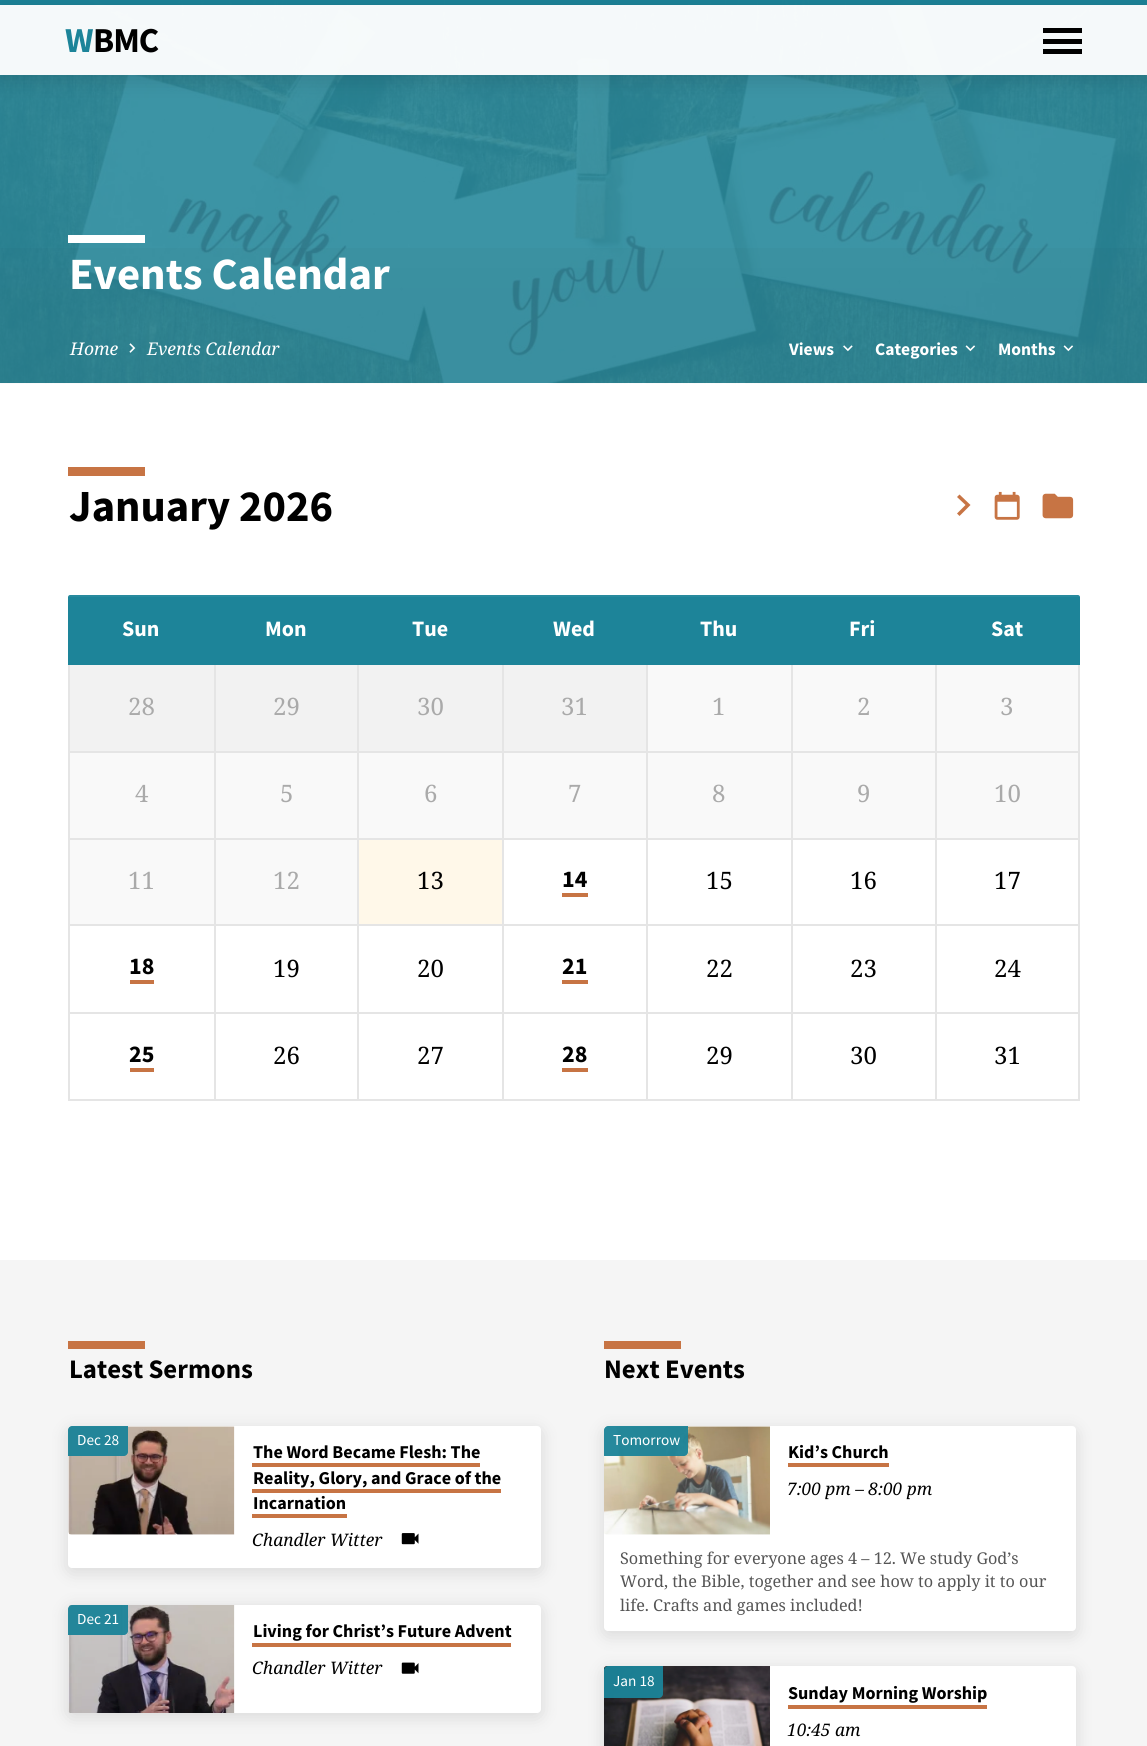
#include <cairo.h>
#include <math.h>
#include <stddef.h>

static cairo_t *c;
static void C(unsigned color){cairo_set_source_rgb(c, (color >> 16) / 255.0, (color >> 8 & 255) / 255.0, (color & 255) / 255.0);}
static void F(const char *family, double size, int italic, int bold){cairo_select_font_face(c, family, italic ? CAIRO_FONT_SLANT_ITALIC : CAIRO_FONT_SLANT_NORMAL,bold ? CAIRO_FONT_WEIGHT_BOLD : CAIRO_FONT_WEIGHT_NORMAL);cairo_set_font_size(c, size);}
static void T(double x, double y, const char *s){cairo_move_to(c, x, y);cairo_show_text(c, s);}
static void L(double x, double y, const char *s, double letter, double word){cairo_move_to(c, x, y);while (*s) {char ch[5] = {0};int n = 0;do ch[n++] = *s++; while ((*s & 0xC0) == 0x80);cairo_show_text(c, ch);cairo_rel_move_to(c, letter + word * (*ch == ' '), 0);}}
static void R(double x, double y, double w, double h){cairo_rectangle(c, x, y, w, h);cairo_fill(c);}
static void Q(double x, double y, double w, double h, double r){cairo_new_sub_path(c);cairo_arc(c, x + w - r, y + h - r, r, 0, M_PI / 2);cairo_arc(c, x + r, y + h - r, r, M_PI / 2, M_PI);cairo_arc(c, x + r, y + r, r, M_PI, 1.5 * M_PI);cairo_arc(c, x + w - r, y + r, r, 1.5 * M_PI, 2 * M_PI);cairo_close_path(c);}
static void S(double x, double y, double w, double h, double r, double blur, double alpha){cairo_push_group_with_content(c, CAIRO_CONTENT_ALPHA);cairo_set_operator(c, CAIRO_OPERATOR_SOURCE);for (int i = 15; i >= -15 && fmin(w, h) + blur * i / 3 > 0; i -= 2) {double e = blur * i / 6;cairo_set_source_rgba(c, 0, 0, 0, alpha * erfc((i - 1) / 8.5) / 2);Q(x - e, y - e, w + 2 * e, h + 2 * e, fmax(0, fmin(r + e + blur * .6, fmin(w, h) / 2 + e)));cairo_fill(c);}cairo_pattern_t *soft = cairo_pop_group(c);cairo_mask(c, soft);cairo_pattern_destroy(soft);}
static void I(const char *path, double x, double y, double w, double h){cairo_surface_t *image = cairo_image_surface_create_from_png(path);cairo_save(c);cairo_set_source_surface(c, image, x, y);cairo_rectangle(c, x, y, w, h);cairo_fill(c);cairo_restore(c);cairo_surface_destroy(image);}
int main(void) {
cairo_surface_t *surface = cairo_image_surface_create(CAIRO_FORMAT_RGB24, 1147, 1746);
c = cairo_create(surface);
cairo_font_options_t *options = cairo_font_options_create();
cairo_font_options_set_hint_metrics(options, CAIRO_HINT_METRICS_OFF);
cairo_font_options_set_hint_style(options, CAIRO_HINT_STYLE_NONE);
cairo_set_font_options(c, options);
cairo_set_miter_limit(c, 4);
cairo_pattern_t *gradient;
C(0xffffff);
cairo_paint(c);
C(0x27899c);
R(0,0,1147,383);
I("1.png",0,0,1147,384);
cairo_set_source_rgba(c,0.11,0.518,0.6,0.95);
R(0,0,1147,5);
cairo_set_source_rgba(c,1,1,1,0.95);
R(0,5,1147,70);
cairo_save(c);
cairo_set_fill_rule(c,CAIRO_FILL_RULE_EVEN_ODD);
cairo_new_path(c);
cairo_move_to(c,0,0);
cairo_line_to(c,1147,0);
cairo_line_to(c,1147,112);
cairo_line_to(c,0,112);
cairo_close_path(c);
cairo_move_to(c,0,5);
cairo_line_to(c,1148,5);
cairo_line_to(c,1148,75);
cairo_line_to(c,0,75);
cairo_close_path(c);
cairo_clip(c);
C(0x000000);
S(0,9,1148,70,0,10.5,.14);
cairo_restore(c);
F("Source Sans Pro",35,0,1);
C(0x1c8499);
L(65,52,"W",-1,0);
C(0x000000);
L(93,52,"BMC",-1,0);
R(1043,28,39,5);
R(1043,39,39,5);
R(1043,49,39,5);
gradient = cairo_pattern_create_linear(574,0,574,383);
cairo_pattern_add_color_stop_rgba(gradient,0,1,1,1,0);
cairo_pattern_add_color_stop_rgba(gradient,.36,0,0,0,0);
cairo_pattern_add_color_stop_rgba(gradient,.76,0,0,0,.03);
cairo_pattern_add_color_stop_rgba(gradient,1,0,0,0,.03);
cairo_set_source(c,gradient);
cairo_pattern_destroy(gradient);
R(0,248,1147,135);
C(0xffffff);
R(68,235,77,8);
F("Source Sans Pro",44.75,0,1);
T(69,289,"Events Calendar");
F("Noto Serif",17.5,1,0);
T(70,355,"Home");
I("2.png",129,343,7,10);
T(147,355,"Events Calendar");
F("Source Sans Pro",17.5,0,1);
T(789,355,"Views");
I("3.png",843,345,10,7);
T(875,355,"Categories");
I("4.png",965,345,11,7);
T(998,355,"Months");
I("5.png",1063,345,11,7);
C(0xc77444);
R(68,467,77,9);
F("Source Sans Pro",44.5,0,1);
C(0x000000);
T(69,521,"January 2026");
C(0xc77444);
cairo_new_path(c);
cairo_move_to(c,957,513.5);
cairo_line_to(c,965.5,505);
cairo_line_to(c,957,497);
cairo_line_to(c,959.5,494.5);
cairo_line_to(c,970.5,505);
cairo_line_to(c,959.5,516);
cairo_close_path(c);
cairo_fill(c);
I("6.png",994,491,26,29);
I("7.png",1042,493,32,26);
C(0x278a9e);
cairo_new_path(c);
cairo_move_to(c,70,595);
cairo_line_to(c,1078,595);
cairo_curve_to(c,1079,595,1080,596,1080,597);
cairo_line_to(c,68,597);
cairo_curve_to(c,68,596,69,595,70,595);
cairo_close_path(c);
cairo_fill(c);
C(0x1d8499);
R(68,597,1012,68);
F("Source Sans Pro",22,0,1);
C(0xffffff);
T(122,636,"Sun");
T(265,636,"Mon");
T(412,636,"Tue");
T(553,636,"Wed");
T(700,636,"Thu");
T(849,636,"Fri");
T(991,636,"Sat");
C(0xf2f2f2);
R(70,665,144,86);
C(0xe5e5e5);
R(68,751,867,2);
R(68,665,2,88);
F("Noto Serif",24,0,0);
C(0xaaaaaa);
T(128,715,"28");
C(0xf2f2f2);
R(216,665,141,86);
C(0xe5e5e5);
R(214,665,2,88);
C(0xaaaaaa);
T(273,715,"29");
C(0xf2f2f2);
R(359,665,143,86);
C(0xe5e5e5);
R(357,665,2,88);
C(0xaaaaaa);
T(417,715,"30");
C(0xf2f2f2);
R(504,665,142,86);
C(0xe5e5e5);
R(502,665,2,88);
C(0xaaaaaa);
T(561,715,"31");
C(0xf9f9f9);
R(648,665,143,86);
C(0xe5e5e5);
R(646,665,2,88);
C(0xaaaaaa);
T(712,715,"1");
C(0xf9f9f9);
R(793,665,142,86);
C(0xe5e5e5);
R(791,665,2,88);
C(0xaaaaaa);
T(857,715,"2");
C(0xf9f9f9);
R(937,665,141,86);
C(0xe5e5e5);
R(1078,665,2,348);
R(935,751,145,2);
R(935,665,2,88);
C(0xaaaaaa);
T(1000,715,"3");
C(0xf9f9f9);
R(70,753,144,85);
C(0xe5e5e5);
R(68,838,1012,2);
R(68,753,2,87);
C(0xaaaaaa);
T(135,802,"4");
C(0xf9f9f9);
R(216,753,141,85);
C(0xe5e5e5);
R(214,753,2,87);
C(0xaaaaaa);
T(280,802,"5");
C(0xf9f9f9);
R(359,753,143,85);
C(0xe5e5e5);
R(357,753,2,87);
C(0xaaaaaa);
T(424,802,"6");
C(0xf9f9f9);
R(504,753,142,85);
C(0xe5e5e5);
R(502,753,2,87);
C(0xaaaaaa);
T(568,802,"7");
C(0xf9f9f9);
R(648,753,143,85);
C(0xe5e5e5);
R(646,753,2,87);
C(0xaaaaaa);
T(712,802,"8");
C(0xf9f9f9);
R(793,753,142,85);
C(0xe5e5e5);
R(791,753,2,87);
C(0xaaaaaa);
T(857,802,"9");
C(0xf9f9f9);
R(937,753,141,85);
C(0xe5e5e5);
R(935,753,2,87);
C(0xaaaaaa);
T(994,802,"10");
C(0xf9f9f9);
R(70,840,144,84);
C(0xe5e5e5);
R(68,924,289,2);
R(68,840,2,86);
C(0xaaaaaa);
T(128,889,"11");
C(0xf9f9f9);
R(216,840,141,84);
C(0xe5e5e5);
R(214,840,2,86);
C(0xaaaaaa);
T(273,889,"12");
C(0xfff8e9);
R(359,840,143,84);
C(0x000000);
T(417,889,"13");
C(0xe5e5e5);
R(357,924,723,2);
R(502,840,2,86);
C(0xc77444);
R(562,893,26,4);
F("Source Sans Pro",24,0,1);
C(0x000000);
T(562,887,"14");
C(0xe5e5e5);
R(646,840,2,86);
F("Noto Serif",24,0,0);
C(0x000000);
T(706,889,"15");
C(0xe5e5e5);
R(791,840,2,86);
C(0x000000);
T(850,889,"16");
C(0xe5e5e5);
R(935,840,2,86);
C(0x000000);
T(994,889,"17");
C(0xe5e5e5);
R(68,1012,1012,2);
R(68,926,2,87);
C(0xc77444);
R(130,980,24,4);
F("Source Sans Pro",24,0,1);
C(0x000000);
T(129,974,"18");
C(0xe5e5e5);
R(214,926,2,87);
F("Noto Serif",24,0,0);
C(0x000000);
T(273,977,"19");
C(0xe5e5e5);
R(357,840,2,173);
C(0x000000);
T(417,977,"20");
C(0xe5e5e5);
R(502,926,2,87);
C(0xc77444);
R(562,980,26,4);
F("Source Sans Pro",24,0,1);
C(0x000000);
T(562,974,"21");
C(0xe5e5e5);
R(646,926,2,87);
F("Noto Serif",24,0,0);
C(0x000000);
T(706,977,"22");
C(0xe5e5e5);
R(791,926,2,87);
C(0x000000);
T(850,977,"23");
C(0xe5e5e5);
R(935,926,2,87);
C(0x000000);
T(994,977,"24");
C(0xe5e5e5);
R(68,1099,867,2);
R(68,1013,2,88);
C(0xc77444);
R(130,1068,24,4);
F("Source Sans Pro",24,0,1);
C(0x000000);
T(129,1062,"25");
C(0xe5e5e5);
R(214,1013,2,88);
F("Noto Serif",24,0,0);
C(0x000000);
T(273,1064,"26");
C(0xe5e5e5);
R(357,1013,2,88);
C(0x000000);
T(417,1064,"27");
C(0xe5e5e5);
R(502,1013,2,88);
C(0xc77444);
R(562,1068,26,4);
F("Source Sans Pro",24,0,1);
C(0x000000);
T(562,1062,"28");
C(0xe5e5e5);
R(646,1013,2,88);
F("Noto Serif",24,0,0);
C(0x000000);
T(706,1064,"29");
C(0xe5e5e5);
R(791,1013,2,88);
C(0x000000);
T(850,1064,"30");
C(0xe5e5e5);
R(1078,1013,2,88);
R(935,1099,145,2);
R(935,1013,2,88);
C(0x000000);
T(994,1064,"31");
C(0xf5f5f5);
R(0,1260,1147,486);
C(0xc77444);
R(68,1341,77,8);
F("Source Sans Pro",26.75,0,1);
C(0x000000);
T(69,1378,"Latest Sermons");
C(0x000000);
S(68,1430,473,142,4,9,.12);
C(0xffffff);
Q(68,1426,473,142,4);
cairo_fill(c);
I("8.png",68,1426,167,109);
cairo_set_source_rgba(c,0.11,0.518,0.6,0.95);
cairo_new_path(c);
cairo_move_to(c,72,1426);
cairo_line_to(c,128,1426);
cairo_line_to(c,128,1452);
cairo_curve_to(c,128,1454,126,1456,124,1456);
cairo_line_to(c,68,1456);
cairo_line_to(c,68,1430);
cairo_curve_to(c,68,1428,70,1426,72,1426);
cairo_close_path(c);
cairo_fill(c);
F("Source Sans Pro",15.25,0,0);
C(0xffffff);
T(77,1445,"Dec 28");
F("Source Sans Pro",18.1,0,1);
C(0x000000);
T(253,1458,"The Word Became Flesh: The");
C(0xc77444);
R(252,1463,228,4);
C(0x000000);
T(253,1484,"Reality, Glory, and Grace of the");
T(253,1509,"Incarnation");
C(0xc77444);
R(252,1489,249,4);
R(252,1514,95,4);
F("Noto Serif",17.25,1,0);
C(0x000000);
T(252,1546,"Chandler Witter");
I("9.png",401,1533,18,12);
C(0x000000);
S(68,1608,473,109,4,9,.12);
C(0xffffff);
Q(68,1605,473,108,4);
cairo_fill(c);
I("10.png",68,1605,167,108);
cairo_set_source_rgba(c,0.11,0.518,0.6,0.95);
cairo_new_path(c);
cairo_move_to(c,72,1605);
cairo_line_to(c,128,1605);
cairo_line_to(c,128,1631);
cairo_curve_to(c,128,1633,126,1635,124,1635);
cairo_line_to(c,68,1635);
cairo_line_to(c,68,1609);
cairo_curve_to(c,68,1607,70,1605,72,1605);
cairo_close_path(c);
cairo_fill(c);
F("Source Sans Pro",15.25,0,0);
C(0xffffff);
T(77,1624,"Dec 21");
F("Source Sans Pro",18.1,0,1);
C(0x000000);
T(253,1637,"Living for Christ’s Future Advent");
C(0xc77444);
R(252,1643,259,4);
F("Noto Serif",17.25,1,0);
C(0x000000);
T(252,1674,"Chandler Witter");
I("11.png",401,1662,18,12);
C(0xc77444);
R(604,1341,77,8);
F("Source Sans Pro",26.75,0,1);
C(0x000000);
T(604,1378,"Next Events");
C(0x000000);
S(604,1430,472,205,4,9,.12);
C(0xffffff);
Q(604,1426,472,205,4);
cairo_fill(c);
I("12.png",604,1426,166,109);
cairo_set_source_rgba(c,0.11,0.518,0.6,0.95);
cairo_new_path(c);
cairo_move_to(c,608,1426);
cairo_line_to(c,688,1426);
cairo_line_to(c,688,1452);
cairo_curve_to(c,688,1454,686,1456,684,1456);
cairo_line_to(c,604,1456);
cairo_line_to(c,604,1430);
cairo_curve_to(c,604,1428,606,1426,608,1426);
cairo_close_path(c);
cairo_fill(c);
F("Source Sans Pro",15.25,0,0);
C(0xffffff);
T(613,1445,"Tomorrow");
F("Source Sans Pro",18.1,0,1);
C(0x000000);
T(788,1458,"Kid’s Church");
C(0xc77444);
R(788,1463,101,4);
F("Noto Serif",17.25,1,0);
C(0x000000);
T(787,1495,"7:00 pm – 8:00 pm");
F("Noto Serif",16.2,0,0);
C(0x555555);
T(620,1564,"Something for everyone ages 4 – 12. We study God’s");
T(620,1587,"Word, the Bible, together and see how to apply it to our");
T(620,1611,"life. Crafts and games included!");
C(0x000000);
S(604,1670,472,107,4,9,.12);
C(0xffffff);
Q(604,1666,472,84,4);
cairo_fill(c);
I("13.png",604,1666,166,80);
cairo_set_source_rgba(c,0.11,0.518,0.6,0.95);
cairo_new_path(c);
cairo_move_to(c,608,1666);
cairo_line_to(c,663,1666);
cairo_line_to(c,663,1694);
cairo_curve_to(c,663,1696,661,1698,659,1698);
cairo_line_to(c,604,1698);
cairo_line_to(c,604,1670);
cairo_curve_to(c,604,1668,606,1666,608,1666);
cairo_close_path(c);
cairo_fill(c);
F("Source Sans Pro",15.25,0,0);
C(0xffffff);
T(613,1686,"Jan 18");
F("Source Sans Pro",18.1,0,1);
C(0x000000);
T(788,1699,"Sunday Morning Worship");
C(0xc77444);
R(788,1705,199,4);
F("Noto Serif",17.25,1,0);
C(0x000000);
T(787,1736,"10:45 am");
cairo_surface_write_to_png(surface, "o.png");
cairo_font_options_destroy(options);
cairo_destroy(c);
cairo_surface_destroy(surface);
return 0;
}
